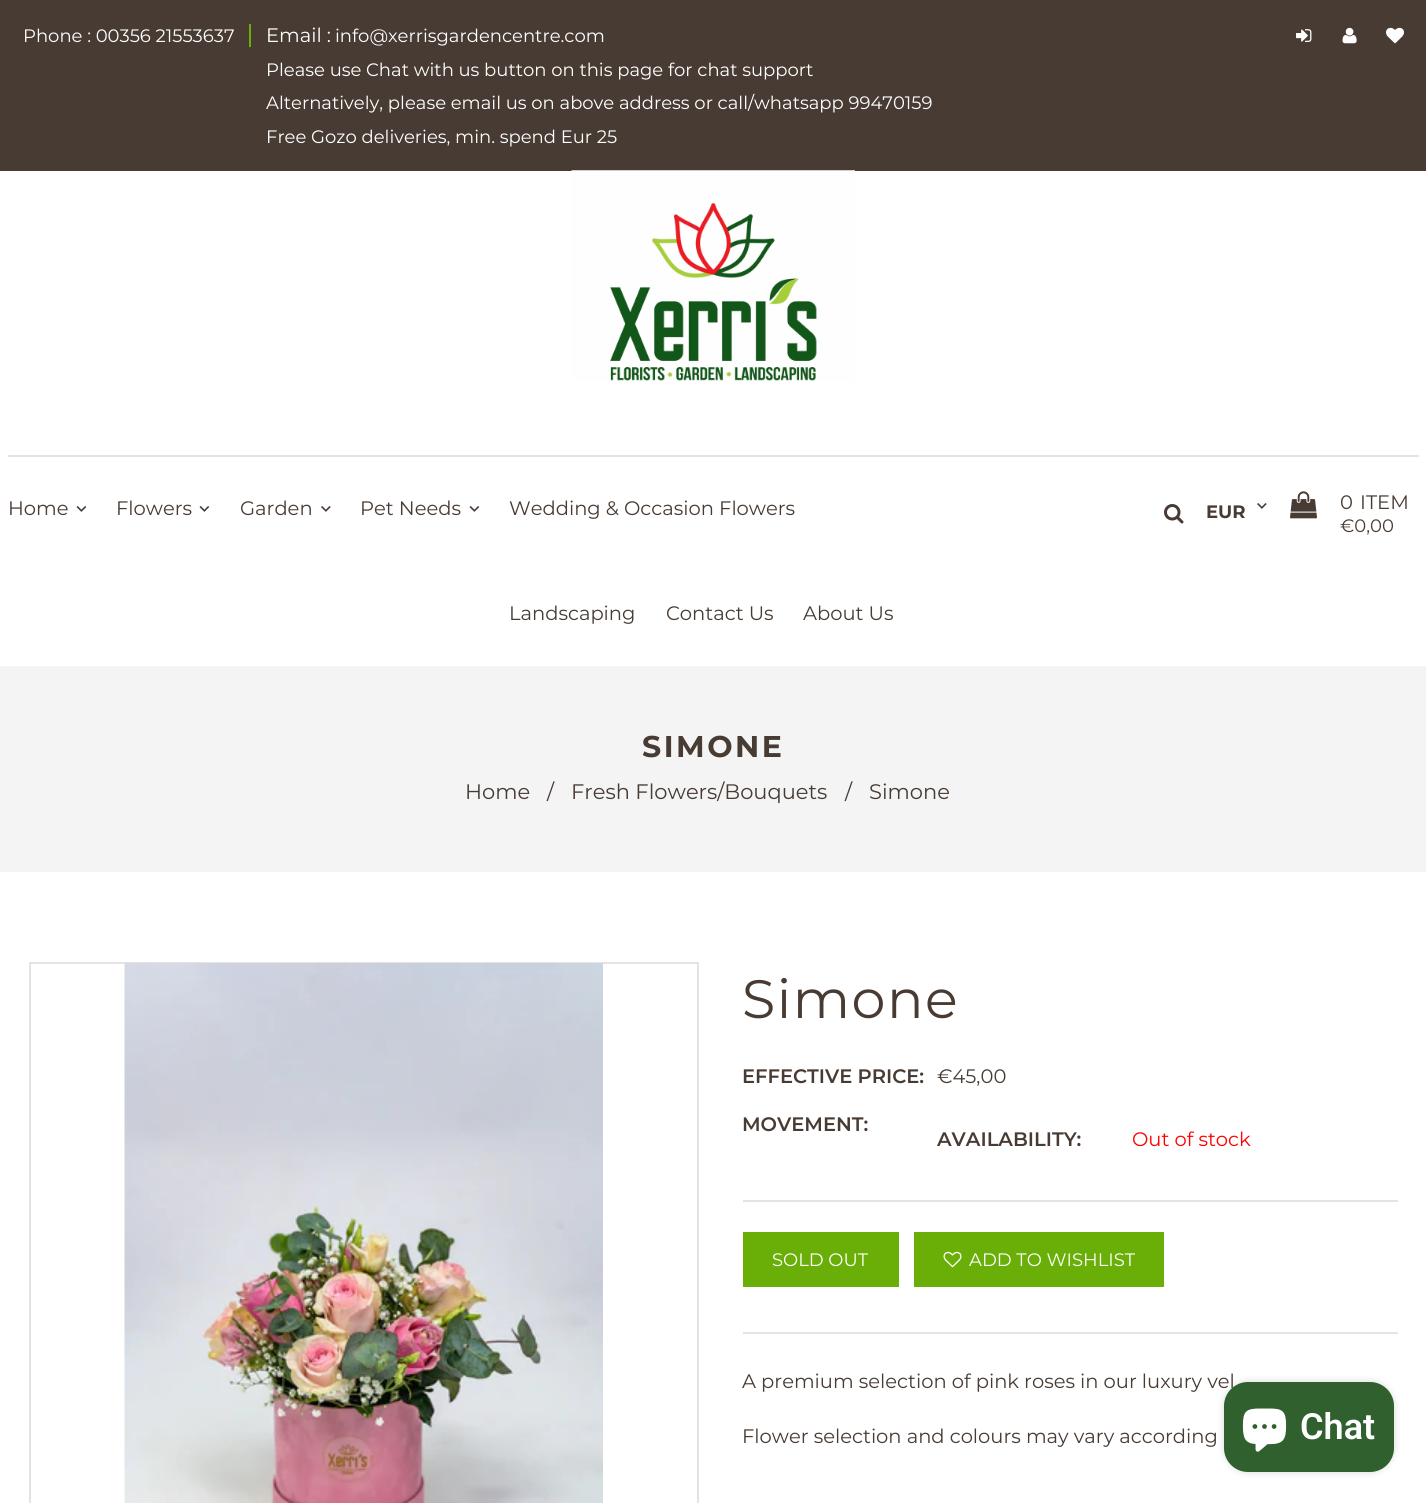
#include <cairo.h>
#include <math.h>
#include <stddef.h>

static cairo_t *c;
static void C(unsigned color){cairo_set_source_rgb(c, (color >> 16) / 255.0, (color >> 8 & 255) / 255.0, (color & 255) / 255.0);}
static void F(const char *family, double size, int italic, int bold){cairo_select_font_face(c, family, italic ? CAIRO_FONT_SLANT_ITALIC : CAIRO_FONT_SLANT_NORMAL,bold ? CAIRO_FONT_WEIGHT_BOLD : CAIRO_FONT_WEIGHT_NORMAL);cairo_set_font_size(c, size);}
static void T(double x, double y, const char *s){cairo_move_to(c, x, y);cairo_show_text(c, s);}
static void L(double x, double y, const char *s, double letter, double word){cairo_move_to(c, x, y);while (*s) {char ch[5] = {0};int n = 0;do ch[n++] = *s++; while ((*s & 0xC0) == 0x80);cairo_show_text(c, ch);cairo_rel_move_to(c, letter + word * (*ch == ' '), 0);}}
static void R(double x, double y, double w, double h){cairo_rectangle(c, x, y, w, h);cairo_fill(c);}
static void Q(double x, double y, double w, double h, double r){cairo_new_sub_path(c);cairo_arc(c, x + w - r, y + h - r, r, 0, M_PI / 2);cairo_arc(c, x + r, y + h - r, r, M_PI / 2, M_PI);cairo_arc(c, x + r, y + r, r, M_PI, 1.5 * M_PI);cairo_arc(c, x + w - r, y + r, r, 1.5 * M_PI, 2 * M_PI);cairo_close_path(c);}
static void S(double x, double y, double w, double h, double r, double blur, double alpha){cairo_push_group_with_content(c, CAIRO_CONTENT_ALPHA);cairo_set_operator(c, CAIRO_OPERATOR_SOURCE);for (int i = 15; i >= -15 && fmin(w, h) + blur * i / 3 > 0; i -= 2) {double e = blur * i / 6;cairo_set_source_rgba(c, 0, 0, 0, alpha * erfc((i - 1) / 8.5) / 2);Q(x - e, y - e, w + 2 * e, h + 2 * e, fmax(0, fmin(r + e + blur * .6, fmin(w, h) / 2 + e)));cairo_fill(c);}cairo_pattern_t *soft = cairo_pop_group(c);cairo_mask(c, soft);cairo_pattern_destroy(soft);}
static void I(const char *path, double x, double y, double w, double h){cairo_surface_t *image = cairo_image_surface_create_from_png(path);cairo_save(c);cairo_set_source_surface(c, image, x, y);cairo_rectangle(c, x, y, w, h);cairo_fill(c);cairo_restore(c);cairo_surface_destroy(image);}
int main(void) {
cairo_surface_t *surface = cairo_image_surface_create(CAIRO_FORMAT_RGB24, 1426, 1503);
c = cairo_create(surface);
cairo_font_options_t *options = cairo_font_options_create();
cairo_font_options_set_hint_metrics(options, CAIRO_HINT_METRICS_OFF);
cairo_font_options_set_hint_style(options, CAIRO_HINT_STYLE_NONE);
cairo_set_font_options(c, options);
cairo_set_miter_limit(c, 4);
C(0xffffff);
cairo_paint(c);
C(0x483b33);
R(0,0,1426,171);
F("Montserrat",18,0,0);
C(0xffffff);
T(23,42,"Phone : 00356 21553637");
C(0x69af07);
R(249,24,2,23);
F("Montserrat",19.5,0,0);
C(0xffffff);
T(266,42,"Email :");
F("Montserrat",18,0,0);
T(335,42,"info@xerrisgardencentre.com");
T(266,76,"Please use Chat with us button on this page for chat support");
T(266,109,"Alternatively, please email us on above address or call/whatsapp 99470159");
T(266,143,"Free Gozo deliveries, min. spend Eur 25");
I("1.png",1296,29,16,13);
I("2.png",1342,27,15,17);
I("3.png",1386,27,18,17);
C(0xe4e4e4);
R(8,455,1411,2);
I("4.png",571,170,284,211);
F("Montserrat",19.5,0,0);
C(0x483b33);
T(8,515,"Home");
I("5.png",76,506,11,6);
T(116,515,"Flowers");
I("5.png",199,506,11,6);
T(240,515,"Garden");
I("6.png",321,506,10,6);
T(360,515,"Pet Needs");
I("5.png",469,506,11,6);
T(509,515,"Wedding & Occasion Flowers");
T(509,620,"Landscaping");
T(666,620,"Contact Us");
T(803,620,"About Us");
I("7.png",1164,504,20,20);
F("Montserrat",18,0,1);
T(1206,518,"EUR");
I("6.png",1257,503,10,6);
I("8.png",1290,491,27,28);
F("Montserrat",19.5,0,0);
T(1340,509,"0");
T(1360,509,"ITEM");
F("Montserrat",18,0,0);
T(1340,532,"€0,00");
C(0xf4f4f4);
R(0,666,1426,206);
F("Montserrat",30,0,1);
C(0x483b33);
L(642,757,"SIMONE",2.5,0);
F("Montserrat",21,0,0);
T(465,799,"Home");
T(547,799,"/");
T(571,799,"Fresh Flowers/Bouquets");
T(845,799,"/");
T(869,799,"Simone");
cairo_rectangle(c,30,963,668,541);
C(0xe4e4e4);
cairo_stroke(c);
I("9.png",124,963,479,540);
F("Montserrat",54,0,0);
C(0x483b33);
L(742,1018,"Simone",1.5,0);
F("Montserrat SemiBold",19.5,0,0);
T(742,1083,"EFFECTIVE PRICE:");
F("Montserrat",19.5,0,0);
T(937,1083,"€45,00");
C(0xe4e4e4);
R(743,1200,655,2);
F("Montserrat SemiBold",19.5,0,0);
C(0x483b33);
T(742,1131,"MOVEMENT:");
T(937,1146,"AVAILABILITY:");
F("Montserrat",19.5,0,0);
C(0xff0000);
T(1132,1146,"Out of stock");
C(0x69af07);
R(743,1232,156,55);
F("Montserrat",18,0,0);
C(0xffffff);
T(772,1266,"SOLD OUT");
C(0x69af07);
R(914,1232,250,55);
I("10.png",943,1251,19,17);
C(0xffffff);
T(969,1266,"ADD TO WISHLIST");
C(0xe4e4e4);
R(743,1332,655,2);
F("Montserrat",19.5,0,0);
C(0x483b33);
T(742,1388,"A premium selection of pink roses in our luxury vel");
T(742,1443,"Flower selection and colours may vary according");
C(0x000000);
S(1224,1382,170,90,24,4,.15);
C(0x2f602e);
Q(1224,1382,170,90,24);
cairo_fill(c);
I("11.png",1242,1408,45,44);
F("Roboto SemiBold",36,0,0);
C(0xffffff);
T(1300,1439,"Chat");
cairo_surface_write_to_png(surface, "o.png");
cairo_font_options_destroy(options);
cairo_destroy(c);
cairo_surface_destroy(surface);
return 0;
}
